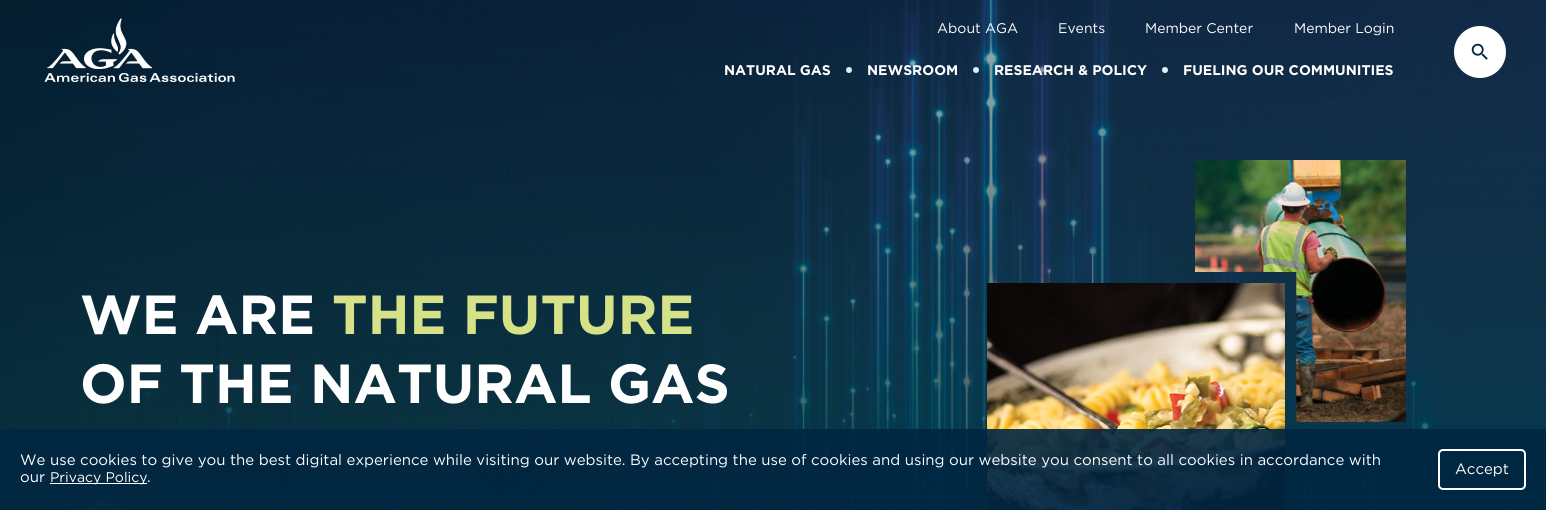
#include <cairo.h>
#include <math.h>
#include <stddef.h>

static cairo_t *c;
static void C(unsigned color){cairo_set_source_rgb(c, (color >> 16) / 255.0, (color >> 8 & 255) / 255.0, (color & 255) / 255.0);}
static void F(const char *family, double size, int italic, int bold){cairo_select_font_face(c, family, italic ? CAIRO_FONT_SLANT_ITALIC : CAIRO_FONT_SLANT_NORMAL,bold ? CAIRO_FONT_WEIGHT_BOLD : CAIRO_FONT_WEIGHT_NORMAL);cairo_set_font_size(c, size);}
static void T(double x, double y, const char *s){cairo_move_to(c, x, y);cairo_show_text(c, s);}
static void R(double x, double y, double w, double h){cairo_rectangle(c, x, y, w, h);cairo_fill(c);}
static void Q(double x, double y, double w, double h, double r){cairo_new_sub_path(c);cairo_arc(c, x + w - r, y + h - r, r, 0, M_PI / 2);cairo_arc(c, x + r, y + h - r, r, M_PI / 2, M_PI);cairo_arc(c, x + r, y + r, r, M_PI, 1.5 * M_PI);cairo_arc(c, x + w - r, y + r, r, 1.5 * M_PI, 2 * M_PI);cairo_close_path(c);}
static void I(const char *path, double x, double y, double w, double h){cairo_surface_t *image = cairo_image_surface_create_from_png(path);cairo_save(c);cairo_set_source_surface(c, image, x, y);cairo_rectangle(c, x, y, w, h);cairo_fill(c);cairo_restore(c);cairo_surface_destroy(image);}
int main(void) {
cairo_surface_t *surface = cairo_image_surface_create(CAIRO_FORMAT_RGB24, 1546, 510);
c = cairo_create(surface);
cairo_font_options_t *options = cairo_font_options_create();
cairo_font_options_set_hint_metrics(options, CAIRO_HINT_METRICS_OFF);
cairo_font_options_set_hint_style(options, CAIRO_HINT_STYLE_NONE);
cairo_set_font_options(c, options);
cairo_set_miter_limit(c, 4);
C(0xffffff);
cairo_paint(c);
I("3.png",0,0,1546,510);
I("1.png",44,18,191,64);
F("Gotham",14,0,0);
C(0xffffff);
T(937,33,"About AGA");
T(1058,33,"Events");
T(1145,33,"Member Center");
T(1294,33,"Member Login");
F("Gotham",14,0,1);
T(724,75,"NATURAL GAS");
C(0xe1eff6);
cairo_new_path(c);
cairo_arc(c,849,70,3,0,2 * M_PI);
cairo_fill(c);
C(0xffffff);
T(867,75,"NEWSROOM");
C(0xe1eff6);
cairo_new_path(c);
cairo_arc(c,976,70,3,0,2 * M_PI);
cairo_fill(c);
C(0xffffff);
T(994,75,"RESEARCH & POLICY");
C(0xe1eff6);
cairo_new_path(c);
cairo_arc(c,1165,70,3,0,2 * M_PI);
cairo_fill(c);
C(0xffffff);
T(1183,75,"FUELING OUR COMMUNITIES");
cairo_new_path(c);
cairo_arc(c,1480,52,26,0,2 * M_PI);
cairo_fill(c);
I("2.png",1471,43,17,17);
F("Gotham",55,0,1);
T(80,334,"WE ARE");
C(0xd6e288);
T(332,334,"THE FUTURE");
C(0xffffff);
T(80,403,"OF THE NATURAL GAS");
cairo_set_source_rgba(c,1,1,1,0.1);
Q(83,501,40,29,20);
cairo_fill(c);
I("5.png",1195,160,211,262);
I("4.png",987,283,298,227);
cairo_set_source_rgba(c,0,0.149,0.259,0.9);
R(0,429,1546,81);
F("Gotham",15,0,0);
C(0xffffff);
T(20,465,"We use cookies to give you the best digital experience while visiting our website. By accepting the use of cookies and using our website you consent to all cookies in accordance with");
T(20,482,"our");
R(50,483,97,1);
F("Gotham",14,0,0);
T(50,482,"Privacy Policy");
F("Gotham",15,0,0);
T(147,482,".");
Q(1439,450,86,39,4);
cairo_stroke(c);
T(1455,474,"Accept");
cairo_surface_write_to_png(surface, "o.png");
cairo_font_options_destroy(options);
cairo_destroy(c);
cairo_surface_destroy(surface);
return 0;
}
